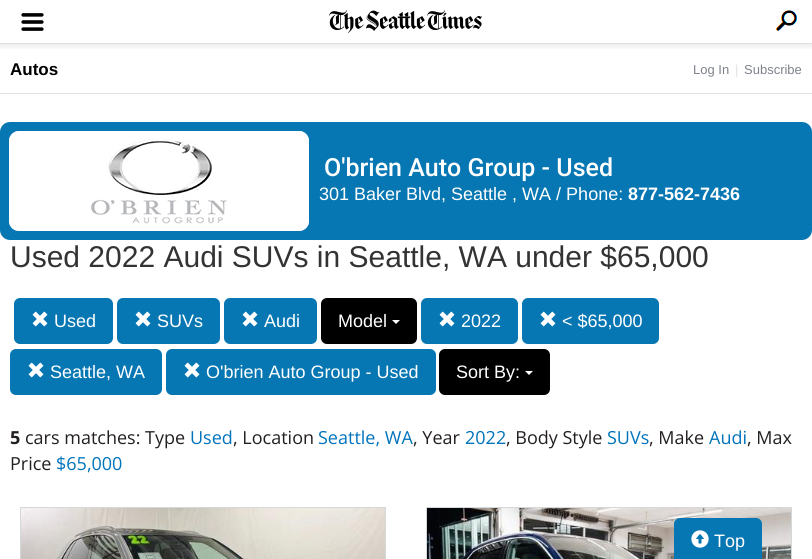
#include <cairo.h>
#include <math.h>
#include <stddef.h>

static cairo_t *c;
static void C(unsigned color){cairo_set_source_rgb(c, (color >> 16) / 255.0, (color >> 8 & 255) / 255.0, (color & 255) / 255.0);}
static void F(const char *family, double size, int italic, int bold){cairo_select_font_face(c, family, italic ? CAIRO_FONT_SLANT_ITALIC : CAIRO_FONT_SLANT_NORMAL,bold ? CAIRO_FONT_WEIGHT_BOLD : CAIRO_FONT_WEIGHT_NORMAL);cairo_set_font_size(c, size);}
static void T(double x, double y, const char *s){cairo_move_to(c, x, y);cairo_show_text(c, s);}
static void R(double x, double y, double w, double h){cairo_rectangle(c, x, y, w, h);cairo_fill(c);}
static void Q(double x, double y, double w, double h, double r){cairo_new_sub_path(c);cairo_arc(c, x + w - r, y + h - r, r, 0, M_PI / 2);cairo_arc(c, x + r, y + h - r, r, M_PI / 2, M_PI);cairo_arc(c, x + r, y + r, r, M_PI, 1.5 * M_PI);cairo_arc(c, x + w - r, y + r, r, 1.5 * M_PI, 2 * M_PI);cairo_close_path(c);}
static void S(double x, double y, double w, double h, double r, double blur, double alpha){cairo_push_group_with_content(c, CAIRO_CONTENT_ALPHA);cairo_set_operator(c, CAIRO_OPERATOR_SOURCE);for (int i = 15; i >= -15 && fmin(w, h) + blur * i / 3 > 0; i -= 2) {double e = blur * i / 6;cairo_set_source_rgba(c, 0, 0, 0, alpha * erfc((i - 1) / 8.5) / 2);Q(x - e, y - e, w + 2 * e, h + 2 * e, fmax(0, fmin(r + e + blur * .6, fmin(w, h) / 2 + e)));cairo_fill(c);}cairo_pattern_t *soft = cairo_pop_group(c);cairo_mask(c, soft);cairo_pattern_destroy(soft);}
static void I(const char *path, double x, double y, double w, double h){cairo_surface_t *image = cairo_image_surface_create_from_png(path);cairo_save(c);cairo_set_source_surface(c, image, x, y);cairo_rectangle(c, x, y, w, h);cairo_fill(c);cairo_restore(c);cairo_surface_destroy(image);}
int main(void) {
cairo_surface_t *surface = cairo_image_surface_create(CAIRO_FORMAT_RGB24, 812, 559);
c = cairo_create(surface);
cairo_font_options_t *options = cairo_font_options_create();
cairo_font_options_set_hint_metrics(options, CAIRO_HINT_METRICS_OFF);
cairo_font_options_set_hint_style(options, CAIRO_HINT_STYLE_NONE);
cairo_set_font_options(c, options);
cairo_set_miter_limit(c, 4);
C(0xffffff);
cairo_paint(c);
cairo_save(c);
cairo_rectangle(c,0,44,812,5);
cairo_clip(c);
C(0x000000);
S(0,2,812,44,0,3.5,.1);
cairo_restore(c);
C(0xe0e0e0);
R(0,43,812,1);
I("1.png",21,13,23,18);
I("2.png",329,10,153,23);
I("3.png",776,10,21,21);
R(0,93,812,1);
F("Liberation Sans",17,0,1);
C(0x000000);
T(10,75,"Autos");
F("Liberation Sans",13,0,0);
C(0x7e838b);
T(693,74,"Log In");
C(0xe0e0e0);
T(735,74,"|");
C(0x7e838b);
T(744,74,"Subscribe");
C(0x0777b3);
Q(0,122,812,118,10);
cairo_fill(c);
C(0xffffff);
Q(9,131,300,100,10);
cairo_fill(c);
I("4.png",9,131,300,100);
F("Roboto Medium",25,0,0);
T(324,176,"O'brien Auto Group - Used");
F("Liberation Sans",18,0,0);
T(319,200,"301 Baker Blvd, Seattle , WA / Phone:");
F("Liberation Sans",18,0,1);
T(628,200,"877-562-7436");
F("Liberation Sans",30,0,0);
C(0x333333);
T(10,267,"Used 2022 Audi SUVs in Seattle, WA under $65,000");
C(0x0777b3);
Q(14,298,99,46,6);
cairo_fill(c);
I("5.png",32,311,16,16);
F("Liberation Sans",18,0,0);
C(0xffffff);
T(54,327,"Used");
C(0x0777b3);
Q(117,298,103,46,6);
cairo_fill(c);
I("5.png",135,311,16,16);
C(0xffffff);
T(157,327,"SUVs");
C(0x0777b3);
Q(224,298,93,46,6);
cairo_fill(c);
I("5.png",242,311,16,16);
C(0xffffff);
T(264,327,"Audi");
C(0x000000);
Q(321,298,96,46,6);
cairo_fill(c);
C(0xffffff);
T(338,327,"Model");
cairo_new_path(c);
cairo_move_to(c,392,320);
cairo_line_to(c,400,320);
cairo_line_to(c,396,324);
cairo_close_path(c);
cairo_fill(c);
C(0x0777b3);
Q(421,298,97,46,6);
cairo_fill(c);
I("5.png",439,311,16,16);
C(0xffffff);
T(461,327,"2022");
C(0x0777b3);
Q(522,298,137,46,6);
cairo_fill(c);
I("5.png",540,311,16,16);
C(0xffffff);
T(562,327,"< $65,000");
C(0x0777b3);
Q(10,349,152,46,6);
cairo_fill(c);
I("5.png",28,362,16,16);
C(0xffffff);
T(50,378,"Seattle, WA");
C(0x0777b3);
Q(166,349,270,46,6);
cairo_fill(c);
I("5.png",184,362,16,16);
C(0xffffff);
T(206,378,"O'brien Auto Group - Used");
C(0x000000);
Q(439,349,111,46,6);
cairo_fill(c);
C(0xffffff);
T(456,378,"Sort By:");
cairo_new_path(c);
cairo_move_to(c,525,371);
cairo_line_to(c,533,371);
cairo_line_to(c,529,375);
cairo_close_path(c);
cairo_fill(c);
F("Open Sans",18,0,1);
C(0x231f20);
T(10,444,"5");
F("Open Sans",18,0,0);
T(25,444,"cars matches: Type");
C(0x0073bd);
T(190,444,"Used");
C(0x231f20);
T(233,444,", Location");
C(0x0073bd);
T(318,444,"Seattle, WA");
C(0x231f20);
T(413,444,", Year");
C(0x0073bd);
T(465,444,"2022");
C(0x231f20);
T(506,444,", Body Style");
C(0x0073bd);
T(607,444,"SUVs");
C(0x231f20);
T(649,444,", Make");
C(0x0073bd);
T(709,444,"Audi");
C(0x231f20);
T(747,444,", Max");
T(10,470,"Price");
C(0x0073bd);
T(56,470,"$65,000");
cairo_rectangle(c,20.5,507.5,365,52);
C(0xd4d8d9);
cairo_set_line_width(c,1);
cairo_stroke(c);
I("6.png",21,508,364,51);
cairo_rectangle(c,426.5,507.5,365,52);
cairo_stroke(c);
I("7.png",427,508,364,51);
C(0x0777b3);
Q(674.5,518.5,87,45,5.5);
cairo_fill_preserve(c);
cairo_stroke(c);
I("8.png",691,530,18,18);
F("Liberation Sans",18,0,0);
C(0xffffff);
T(714,547,"Top");
cairo_surface_write_to_png(surface, "o.png");
cairo_font_options_destroy(options);
cairo_destroy(c);
cairo_surface_destroy(surface);
return 0;
}
